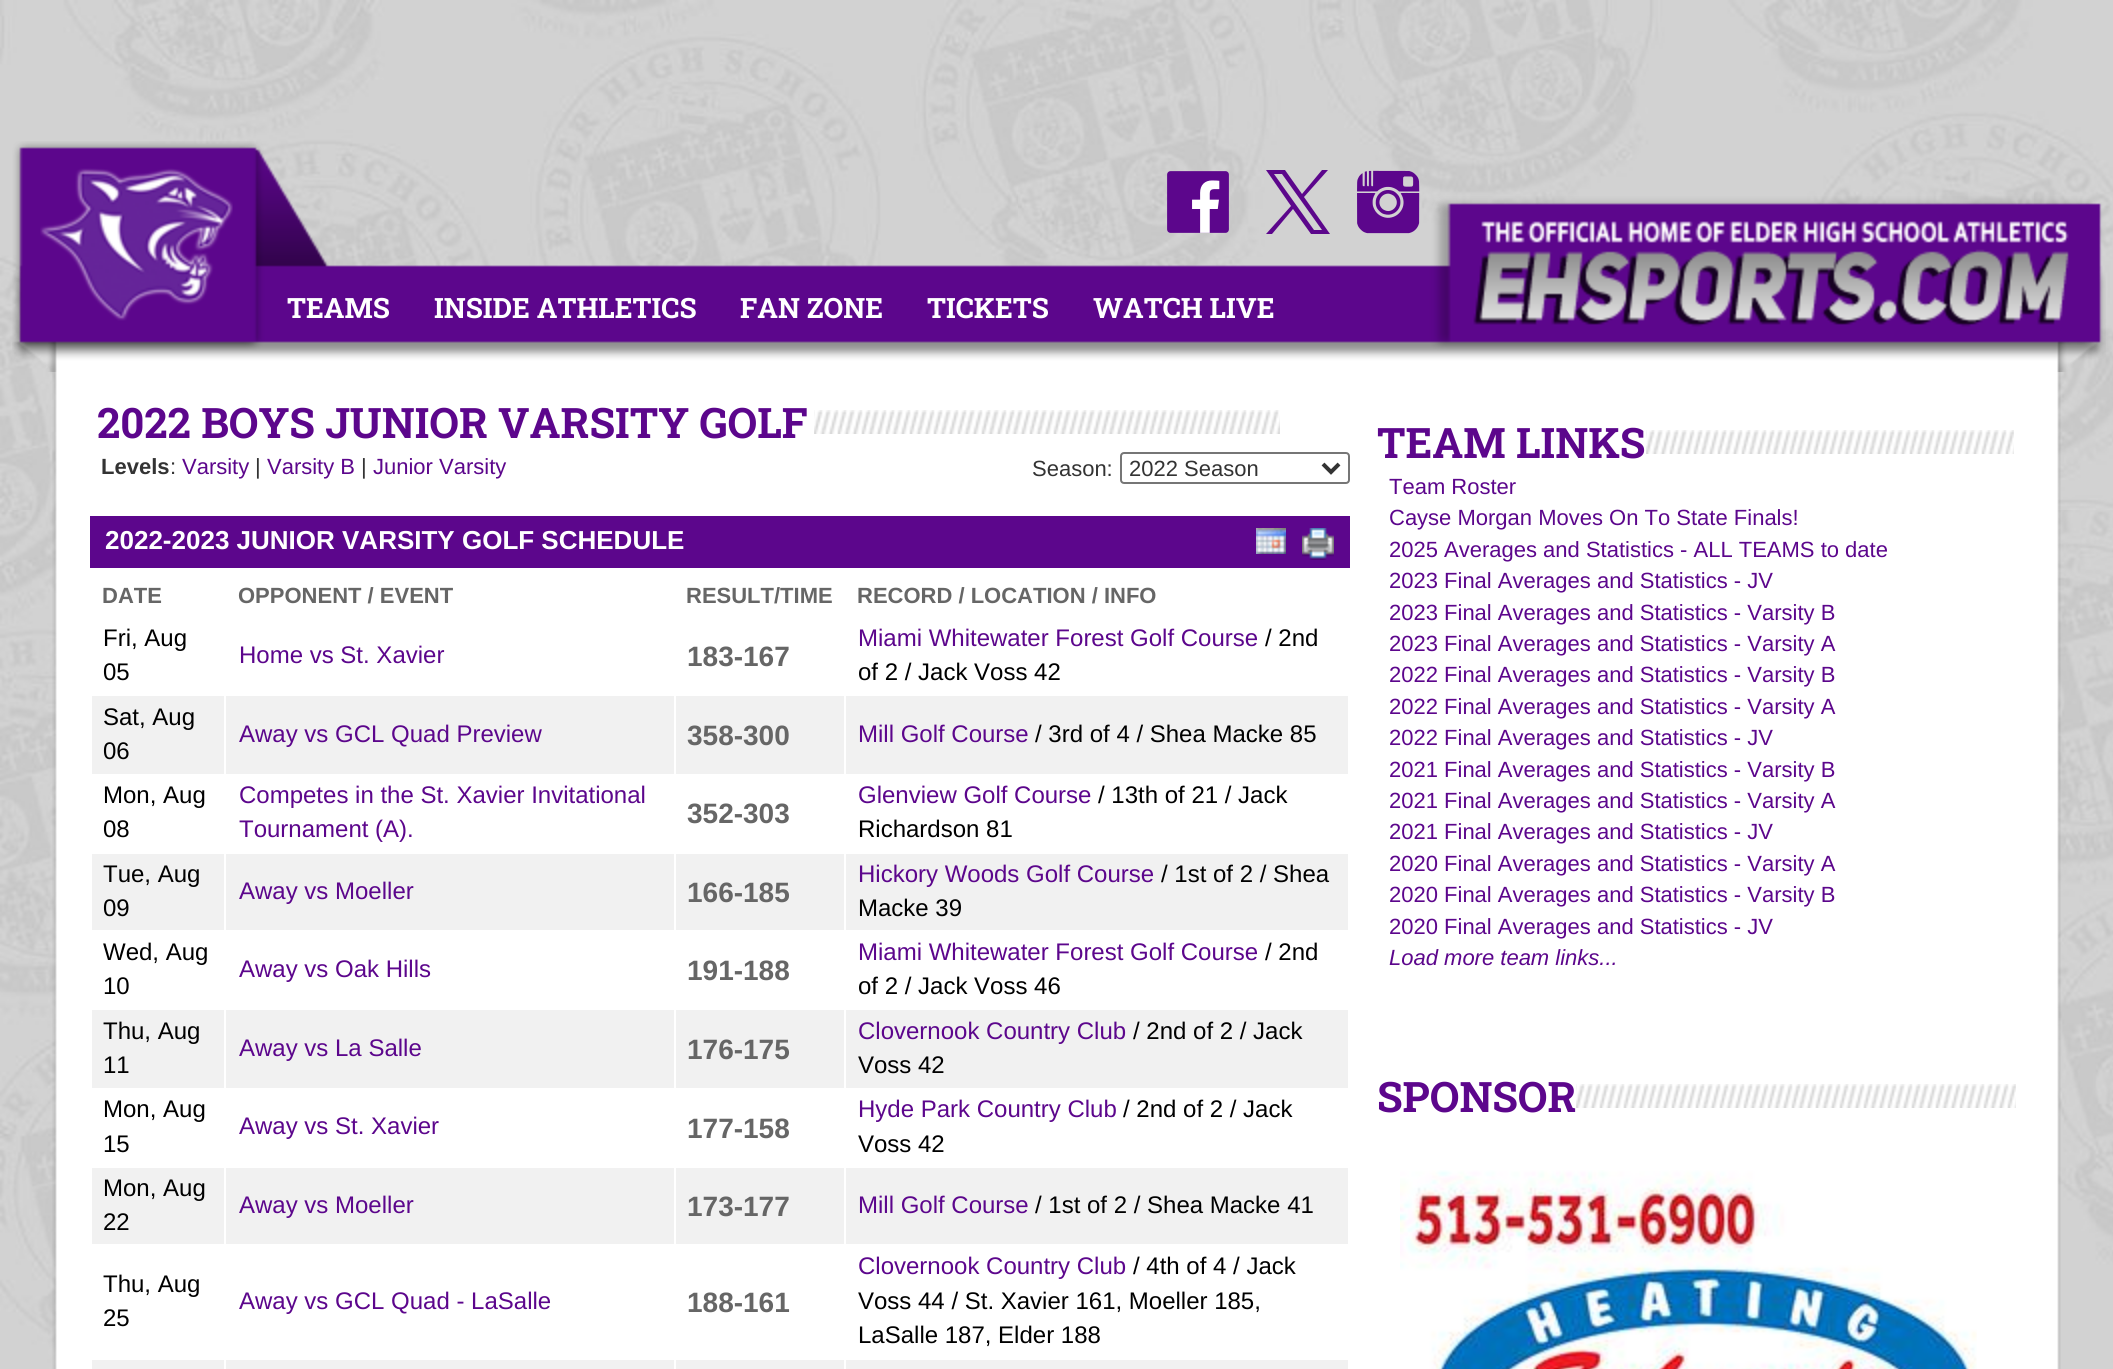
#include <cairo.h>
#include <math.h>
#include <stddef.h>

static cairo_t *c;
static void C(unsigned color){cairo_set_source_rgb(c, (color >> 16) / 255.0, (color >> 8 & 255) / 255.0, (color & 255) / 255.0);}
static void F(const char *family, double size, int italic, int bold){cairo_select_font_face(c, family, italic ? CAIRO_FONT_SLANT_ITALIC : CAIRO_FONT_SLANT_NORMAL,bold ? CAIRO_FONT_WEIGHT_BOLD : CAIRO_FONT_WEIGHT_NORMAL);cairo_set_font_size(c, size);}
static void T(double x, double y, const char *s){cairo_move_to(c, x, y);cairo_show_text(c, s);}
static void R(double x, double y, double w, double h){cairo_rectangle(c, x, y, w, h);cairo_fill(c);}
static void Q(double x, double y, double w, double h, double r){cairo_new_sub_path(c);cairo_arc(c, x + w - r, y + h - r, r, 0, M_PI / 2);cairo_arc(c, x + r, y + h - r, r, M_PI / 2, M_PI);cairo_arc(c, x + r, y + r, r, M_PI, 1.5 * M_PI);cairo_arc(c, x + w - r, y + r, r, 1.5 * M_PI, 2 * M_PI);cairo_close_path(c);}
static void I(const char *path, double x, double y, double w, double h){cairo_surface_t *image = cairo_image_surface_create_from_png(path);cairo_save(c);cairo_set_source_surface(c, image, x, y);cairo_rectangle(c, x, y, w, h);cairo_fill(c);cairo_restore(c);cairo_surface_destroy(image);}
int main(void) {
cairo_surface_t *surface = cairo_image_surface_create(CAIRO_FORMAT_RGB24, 2113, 1369);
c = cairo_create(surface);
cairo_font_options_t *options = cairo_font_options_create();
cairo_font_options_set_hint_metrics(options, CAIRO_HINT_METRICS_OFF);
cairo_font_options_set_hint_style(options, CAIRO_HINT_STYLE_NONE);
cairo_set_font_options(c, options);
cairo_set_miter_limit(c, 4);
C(0xffffff);
cairo_paint(c);
I("1.png",0,0,2113,1369);
I("2.png",12,141,2094,231);
I("3.png",40,168,193,153);
I("4.png",1167,171,62,62);
C(0x5c068c);
cairo_new_path(c);
cairo_move_to(c,1304,197);
cairo_line_to(c,1328,170);
cairo_line_to(c,1322,170);
cairo_line_to(c,1302,194);
cairo_line_to(c,1285,170);
cairo_line_to(c,1266,170);
cairo_line_to(c,1291,206);
cairo_line_to(c,1266,234);
cairo_line_to(c,1272,234);
cairo_line_to(c,1293,209);
cairo_line_to(c,1311,234);
cairo_line_to(c,1330,234);
cairo_move_to(c,1274,174);
cairo_line_to(c,1282,174);
cairo_line_to(c,1322,230);
cairo_line_to(c,1314,230);
cairo_fill(c);
I("5.png",1357,170,63,64);
F("Roboto Slab",28,0,1);
C(0xffffff);
T(287,318,"TEAMS");
T(434,318,"INSIDE ATHLETICS");
T(740,318,"FAN ZONE");
T(927,318,"TICKETS");
T(1093,318,"WATCH LIVE");
I("6.png",1473,221,596,106);
I("7.png",52,372,2009,997);
F("Roboto Slab",42,0,1);
C(0x5c068c);
T(97,438,"2022 BOYS JUNIOR VARSITY GOLF");
I("8.png",814,410,466,24);
F("Liberation Sans",22,0,1);
C(0x333333);
T(101,474,"Levels");
F("Liberation Sans",22,0,0);
T(170,474,":");
C(0x5c068c);
T(182,474,"Varsity");
C(0x333333);
T(255,474,"|");
C(0x5c068c);
T(267,474,"Varsity B");
C(0x333333);
T(361,474,"|");
C(0x5c068c);
T(373,474,"Junior Varsity");
C(0x333333);
T(1032,476,"Season:");
Q(1121,453,228,30,3);
C(0x767676);
cairo_stroke(c);
cairo_new_path(c);
cairo_move_to(c,1323,464);
cairo_line_to(c,1331,472);
cairo_line_to(c,1339,464);
C(0x333333);
cairo_set_line_width(c,4);
cairo_stroke(c);
T(1129,476,"2022 Season");
C(0x5c068c);
R(90,516,1260,52);
F("Liberation Sans",26,0,1);
C(0xffffff);
T(105,549,"2022-2023 JUNIOR VARSITY GOLF SCHEDULE");
I("9.png",1256,528,30,26);
I("10.png",1302,528,32,32);
F("Liberation Sans",22,0,1);
C(0x666666);
T(102,603,"DATE");
T(238,603,"OPPONENT / EVENT");
T(686,603,"RESULT/TIME");
T(857,603,"RECORD / LOCATION / INFO");
F("Liberation Sans",24,0,0);
C(0x000000);
T(103,646,"Fri, Aug");
T(103,680,"05");
C(0x5c068c);
T(239,663,"Home vs St. Xavier");
F("Liberation Sans",28,0,1);
C(0x666666);
T(687,666,"183-167");
F("Liberation Sans",24,0,0);
C(0x5c068c);
T(858,646,"Miami Whitewater Forest Golf Course");
C(0x000000);
T(1265,646,"/ 2nd");
T(858,680,"of 2 / Jack Voss 42");
C(0xf1f1f1);
R(92,696,1256,78);
C(0x000000);
T(103,725,"Sat, Aug");
T(103,759,"06");
C(0xffffff);
R(224,694,2,82);
C(0x5c068c);
T(239,742,"Away vs GCL Quad Preview");
C(0xffffff);
R(674,694,2,82);
F("Liberation Sans",28,0,1);
C(0x666666);
T(687,745,"358-300");
C(0xffffff);
R(844,694,2,82);
F("Liberation Sans",24,0,0);
C(0x5c068c);
T(858,742,"Mill Golf Course");
C(0x000000);
T(1035,742,"/ 3rd of 4 / Shea Macke 85");
T(103,803,"Mon, Aug");
T(103,837,"08");
C(0x5c068c);
T(239,803,"Competes in the St. Xavier Invitational");
T(239,837,"Tournament (A).");
F("Liberation Sans",28,0,1);
C(0x666666);
T(687,823,"352-303");
F("Liberation Sans",24,0,0);
C(0x5c068c);
T(858,803,"Glenview Golf Course");
C(0x000000);
T(1098,803,"/ 13th of 21 / Jack");
T(858,837,"Richardson 81");
C(0xf1f1f1);
R(92,854,1256,76);
C(0x000000);
T(103,882,"Tue, Aug");
T(103,916,"09");
C(0xffffff);
R(224,852,2,80);
C(0x5c068c);
T(239,899,"Away vs Moeller");
C(0xffffff);
R(674,852,2,80);
F("Liberation Sans",28,0,1);
C(0x666666);
T(687,902,"166-185");
C(0xffffff);
R(844,852,2,80);
F("Liberation Sans",24,0,0);
C(0x5c068c);
T(858,882,"Hickory Woods Golf Course");
C(0x000000);
T(1161,882,"/ 1st of 2 / Shea");
T(858,916,"Macke 39");
T(103,960,"Wed, Aug");
T(103,994,"10");
C(0x5c068c);
T(239,977,"Away vs Oak Hills");
F("Liberation Sans",28,0,1);
C(0x666666);
T(687,980,"191-188");
F("Liberation Sans",24,0,0);
C(0x5c068c);
T(858,960,"Miami Whitewater Forest Golf Course");
C(0x000000);
T(1265,960,"/ 2nd");
T(858,994,"of 2 / Jack Voss 46");
C(0xf1f1f1);
R(92,1010,1256,78);
C(0x000000);
T(103,1039,"Thu, Aug");
T(103,1073,"11");
C(0xffffff);
R(224,1008,2,82);
C(0x5c068c);
T(239,1056,"Away vs La Salle");
C(0xffffff);
R(674,1008,2,82);
F("Liberation Sans",28,0,1);
C(0x666666);
T(687,1059,"176-175");
C(0xffffff);
R(844,1008,2,82);
F("Liberation Sans",24,0,0);
C(0x5c068c);
T(858,1039,"Clovernook Country Club");
C(0x000000);
T(1133,1039,"/ 2nd of 2 / Jack");
T(858,1073,"Voss 42");
T(103,1117,"Mon, Aug");
T(103,1152,"15");
C(0x5c068c);
T(239,1134,"Away vs St. Xavier");
F("Liberation Sans",28,0,1);
C(0x666666);
T(687,1138,"177-158");
F("Liberation Sans",24,0,0);
C(0x5c068c);
T(858,1117,"Hyde Park Country Club");
C(0x000000);
T(1123,1117,"/ 2nd of 2 / Jack");
T(858,1152,"Voss 42");
C(0xf1f1f1);
R(92,1168,1256,76);
C(0x000000);
T(103,1196,"Mon, Aug");
T(103,1230,"22");
C(0xffffff);
R(224,1166,2,80);
C(0x5c068c);
T(239,1213,"Away vs Moeller");
C(0xffffff);
R(674,1166,2,80);
F("Liberation Sans",28,0,1);
C(0x666666);
T(687,1216,"173-177");
C(0xffffff);
R(844,1166,2,80);
F("Liberation Sans",24,0,0);
C(0x5c068c);
T(858,1213,"Mill Golf Course");
C(0x000000);
T(1035,1213,"/ 1st of 2 / Shea Macke 41");
T(103,1292,"Thu, Aug");
T(103,1326,"25");
C(0x5c068c);
T(239,1309,"Away vs GCL Quad - LaSalle");
F("Liberation Sans",28,0,1);
C(0x666666);
T(687,1312,"188-161");
F("Liberation Sans",24,0,0);
C(0x5c068c);
T(858,1274,"Clovernook Country Club");
C(0x000000);
T(1133,1274,"/ 4th of 4 / Jack");
T(858,1309,"Voss 44 / St. Xavier 161, Moeller 185,");
T(858,1343,"LaSalle 187, Elder 188");
C(0xf1f1f1);
R(92,1360,1256,9);
C(0xffffff);
R(224,1358,2,11);
R(674,1358,2,11);
R(844,1358,2,11);
F("Roboto Slab",42,0,1);
C(0x5c068c);
T(1377,458,"TEAM LINKS");
I("11.png",1646,430,368,24);
F("Liberation Sans",22,0,0);
T(1389,494,"Team Roster");
T(1389,525,"Cayse Morgan Moves On To State Finals!");
T(1389,557,"2025 Averages and Statistics - ALL TEAMS to date");
T(1389,588,"2023 Final Averages and Statistics - JV");
T(1389,620,"2023 Final Averages and Statistics - Varsity B");
T(1389,651,"2023 Final Averages and Statistics - Varsity A");
T(1389,682,"2022 Final Averages and Statistics - Varsity B");
T(1389,714,"2022 Final Averages and Statistics - Varsity A");
T(1389,745,"2022 Final Averages and Statistics - JV");
T(1389,777,"2021 Final Averages and Statistics - Varsity B");
T(1389,808,"2021 Final Averages and Statistics - Varsity A");
T(1389,839,"2021 Final Averages and Statistics - JV");
T(1389,871,"2020 Final Averages and Statistics - Varsity A");
T(1389,902,"2020 Final Averages and Statistics - Varsity B");
T(1389,934,"2020 Final Averages and Statistics - JV");
F("Liberation Sans",22,1,0);
T(1389,965,"Load more team links...");
F("Roboto Slab",42,0,1);
T(1377,1112,"SPONSOR");
I("12.png",1576,1084,440,24);
I("13.png",1400,1170,577,199);
cairo_surface_write_to_png(surface, "o.png");
cairo_font_options_destroy(options);
cairo_destroy(c);
cairo_surface_destroy(surface);
return 0;
}
